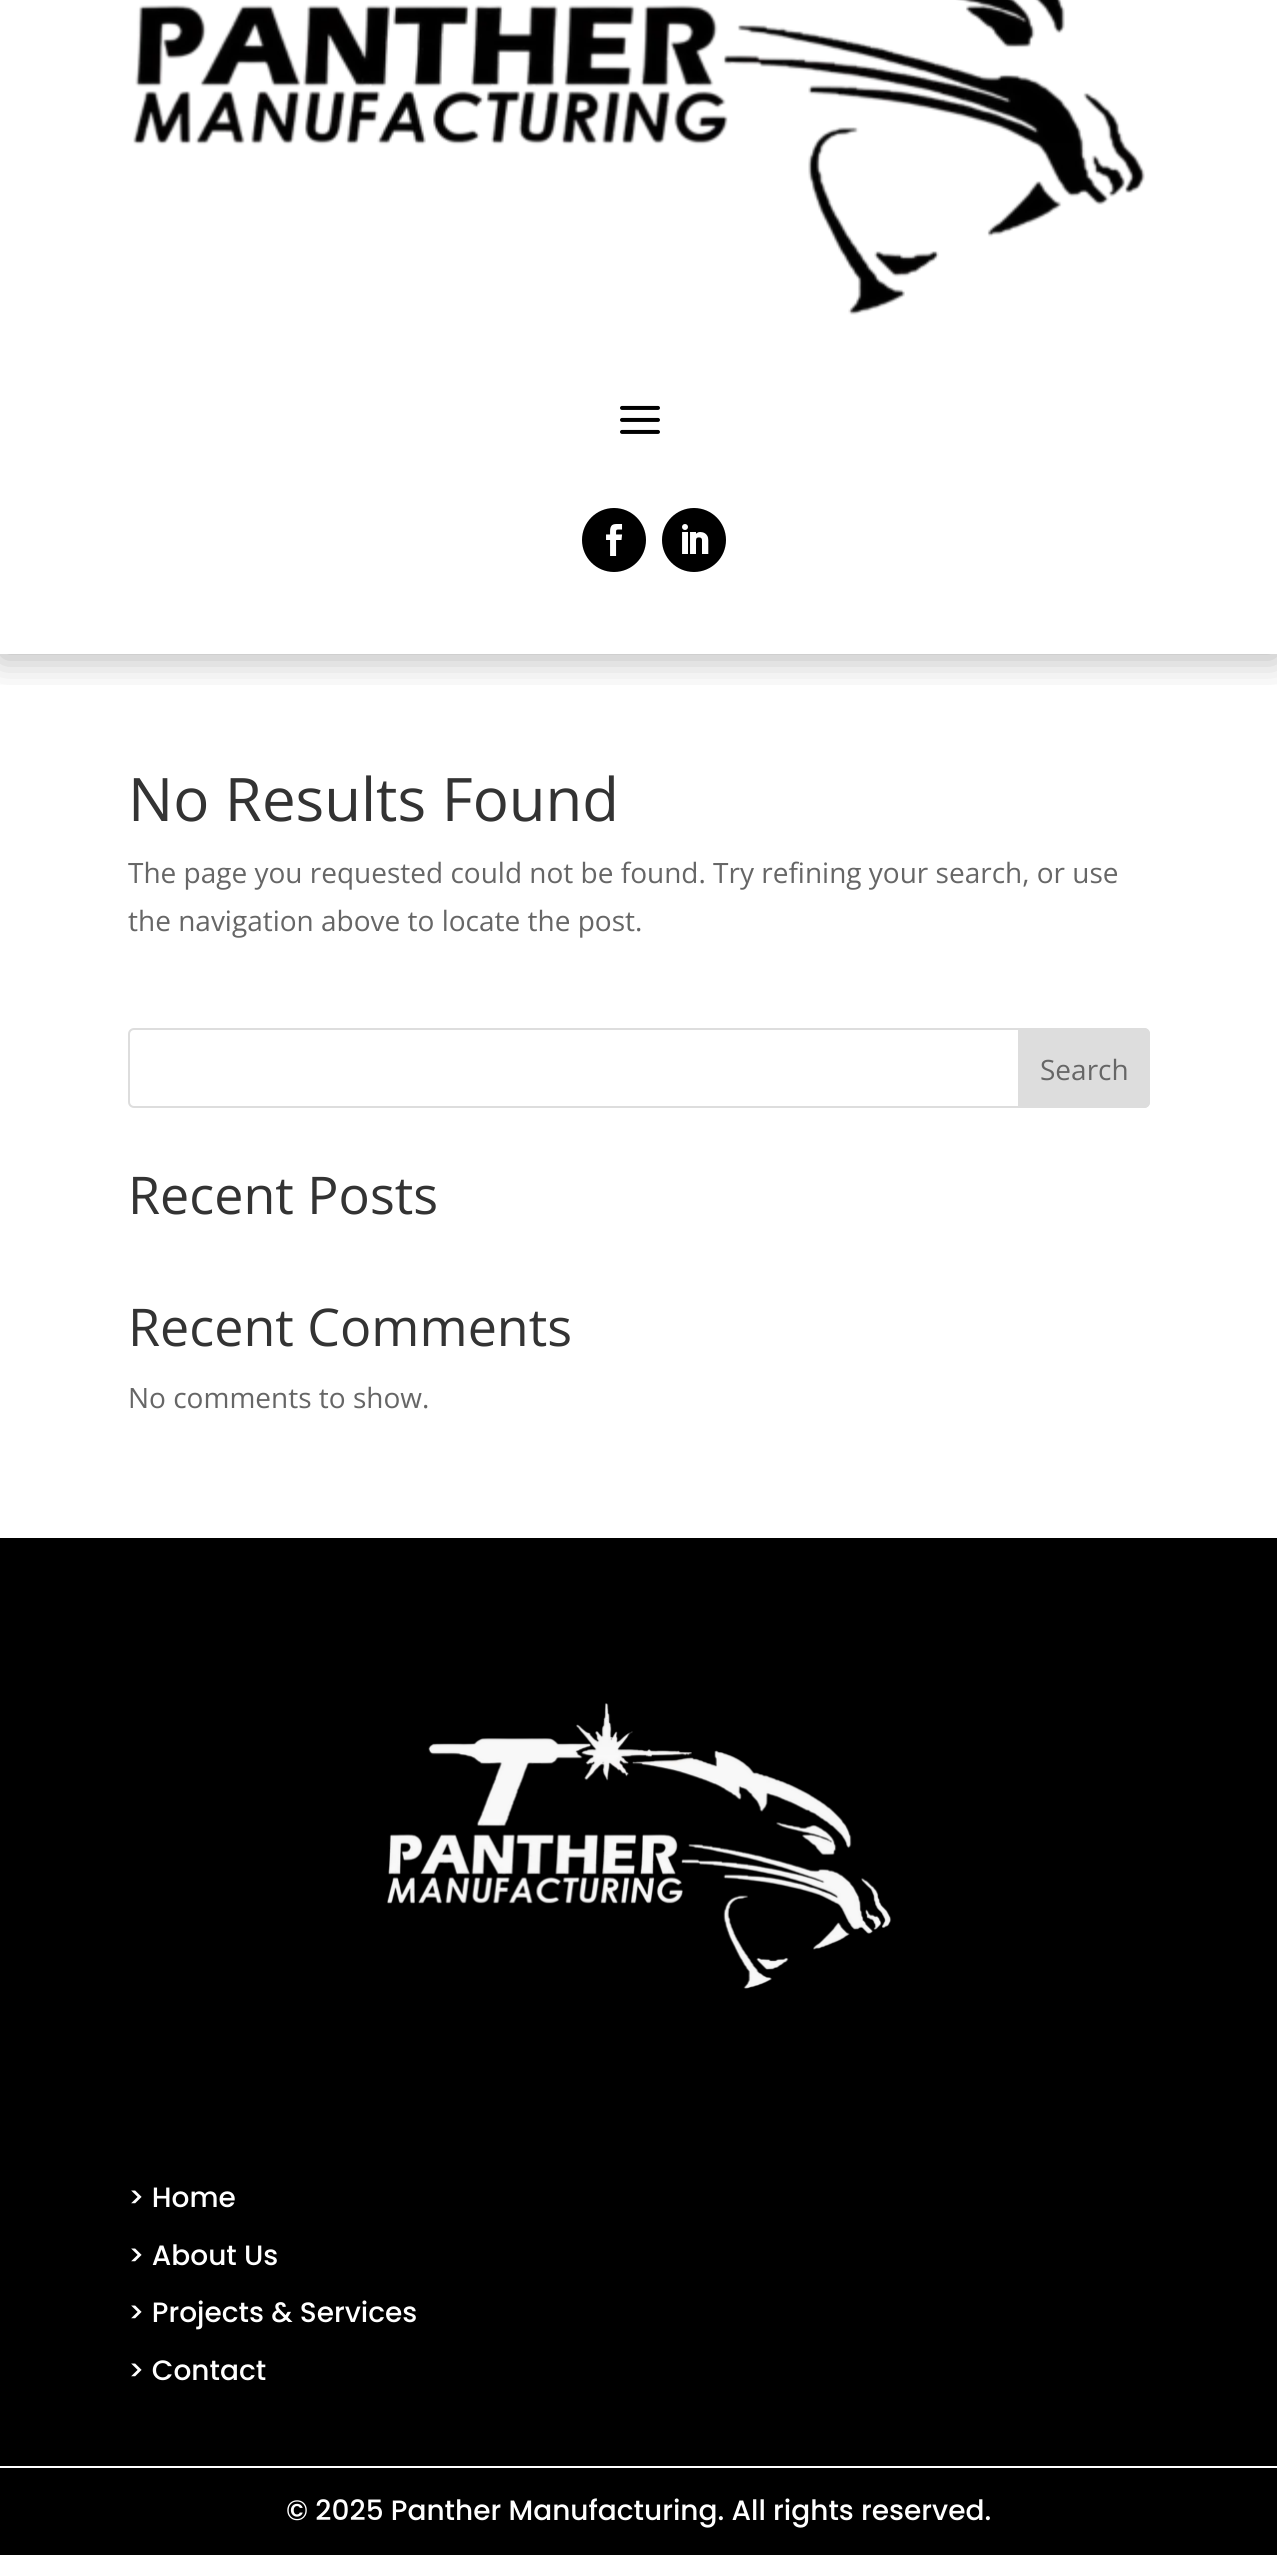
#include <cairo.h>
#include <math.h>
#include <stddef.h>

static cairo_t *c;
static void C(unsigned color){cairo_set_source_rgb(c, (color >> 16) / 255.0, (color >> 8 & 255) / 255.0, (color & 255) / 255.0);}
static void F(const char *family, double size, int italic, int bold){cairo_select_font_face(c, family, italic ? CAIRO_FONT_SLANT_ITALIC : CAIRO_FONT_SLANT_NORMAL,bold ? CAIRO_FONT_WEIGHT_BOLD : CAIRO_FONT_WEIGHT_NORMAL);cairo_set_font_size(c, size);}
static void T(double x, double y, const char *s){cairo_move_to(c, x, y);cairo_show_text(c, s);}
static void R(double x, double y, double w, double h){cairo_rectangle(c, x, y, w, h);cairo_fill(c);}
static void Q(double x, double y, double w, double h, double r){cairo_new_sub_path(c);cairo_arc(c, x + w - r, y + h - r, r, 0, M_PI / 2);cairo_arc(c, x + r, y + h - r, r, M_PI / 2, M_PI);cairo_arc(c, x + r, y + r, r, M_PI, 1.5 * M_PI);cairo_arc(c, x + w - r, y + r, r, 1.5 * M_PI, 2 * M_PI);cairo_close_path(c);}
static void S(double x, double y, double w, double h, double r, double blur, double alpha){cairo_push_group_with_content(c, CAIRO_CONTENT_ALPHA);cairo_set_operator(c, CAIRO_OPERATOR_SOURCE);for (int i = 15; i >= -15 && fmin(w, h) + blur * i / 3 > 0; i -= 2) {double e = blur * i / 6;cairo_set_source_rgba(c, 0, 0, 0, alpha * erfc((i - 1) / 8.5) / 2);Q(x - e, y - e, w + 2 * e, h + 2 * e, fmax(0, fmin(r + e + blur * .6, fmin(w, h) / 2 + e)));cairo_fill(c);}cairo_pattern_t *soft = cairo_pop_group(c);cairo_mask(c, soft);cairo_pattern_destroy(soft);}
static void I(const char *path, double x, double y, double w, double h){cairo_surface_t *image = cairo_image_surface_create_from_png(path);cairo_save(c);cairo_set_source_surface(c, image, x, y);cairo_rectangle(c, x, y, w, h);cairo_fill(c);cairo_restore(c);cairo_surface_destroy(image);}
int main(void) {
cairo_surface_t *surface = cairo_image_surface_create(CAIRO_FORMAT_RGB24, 1277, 2555);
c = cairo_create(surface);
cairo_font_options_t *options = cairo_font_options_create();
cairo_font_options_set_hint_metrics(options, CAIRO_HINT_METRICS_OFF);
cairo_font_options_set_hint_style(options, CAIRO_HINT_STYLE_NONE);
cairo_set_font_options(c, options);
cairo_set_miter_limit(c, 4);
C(0xffffff);
cairo_paint(c);
cairo_save(c);
cairo_rectangle(c,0,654,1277,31);
cairo_clip(c);
C(0x000000);
S(0,-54,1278,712,0,18,.3);
cairo_restore(c);
I("1.png",133,0,1012,315);
I("2.png",620,405,40,29);
C(0x000000);
cairo_arc(c,614,540,32,0,2 * M_PI);
cairo_fill(c);
I("3.png",606,524,17,32);
cairo_arc(c,694,540,32,0,2 * M_PI);
cairo_fill(c);
I("4.png",682,524,27,30);
F("Open Sans",60,0,0);
C(0x333333);
T(128,821,"No Results Found");
F("Open Sans",28,0,0);
C(0x666666);
T(128,883,"The page you requested could not be found. Try refining your search, or use");
T(128,931,"the navigation above to locate the post.");
Q(129,1029,1020,78,5);
C(0xdddddd);
cairo_stroke(c);
cairo_new_path(c);
cairo_move_to(c,1019,1029);
cairo_line_to(c,1144,1029);
cairo_curve_to(c,1147,1029,1149,1031,1149,1034);
cairo_line_to(c,1149,1102);
cairo_curve_to(c,1149,1105,1147,1107,1144,1107);
cairo_line_to(c,1019,1107);
cairo_close_path(c);
cairo_fill_preserve(c);
cairo_stroke(c);
C(0x666666);
T(1040,1080,"Search");
F("Open Sans",52,0,0);
C(0x333333);
T(128,1214,"Recent Posts");
T(128,1346,"Recent Comments");
F("Open Sans",28,0,0);
C(0x666666);
T(128,1408,"No comments to show.");
C(0x000000);
R(0,1538,1277,1017);
I("5.png",387,1703,505,286);
F("Poppins Medium",28,0,0);
C(0xffffff);
T(128,2207,"> Home");
T(128,2265,"> About Us");
T(128,2322,"> Projects & Services");
T(128,2380,"> Contact");
R(0,2466,1277,2);
T(286,2520,"© 2025 Panther Manufacturing. All rights reserved.");
cairo_surface_write_to_png(surface, "o.png");
cairo_font_options_destroy(options);
cairo_destroy(c);
cairo_surface_destroy(surface);
return 0;
}
